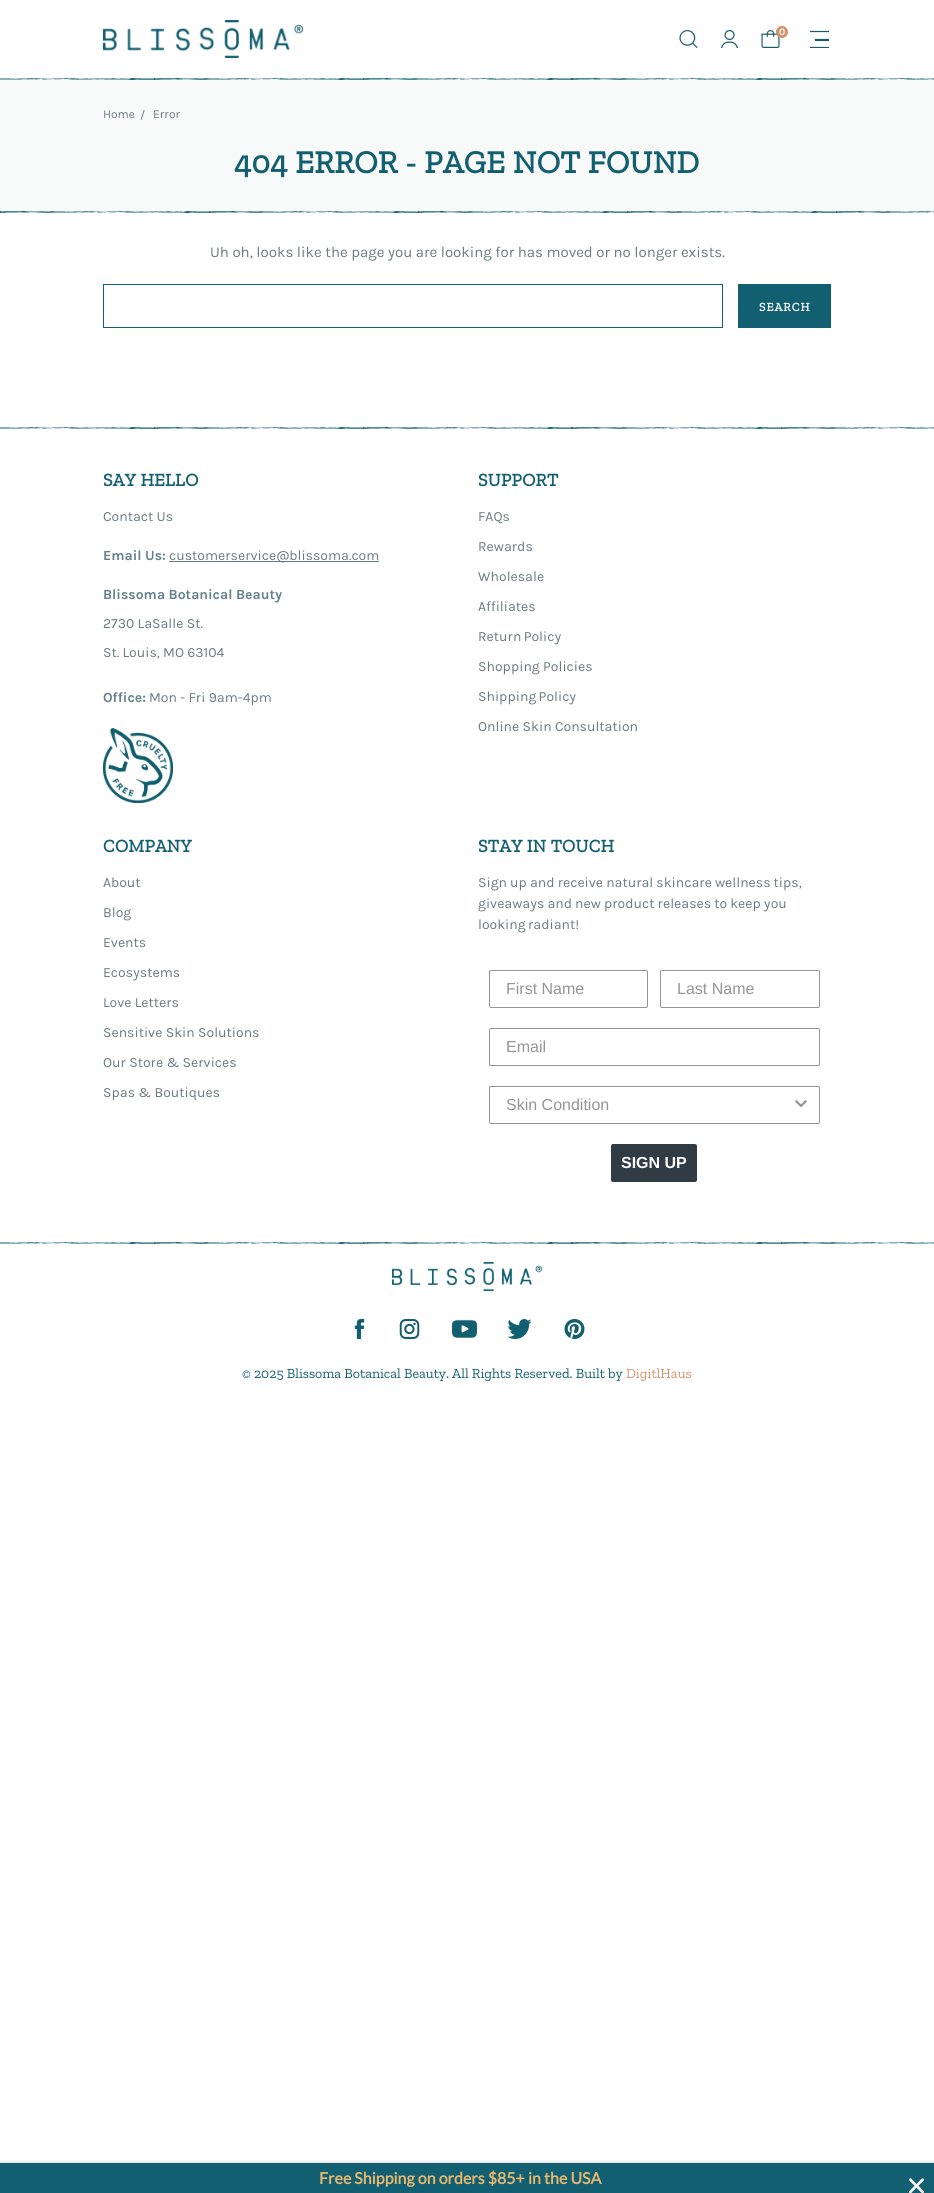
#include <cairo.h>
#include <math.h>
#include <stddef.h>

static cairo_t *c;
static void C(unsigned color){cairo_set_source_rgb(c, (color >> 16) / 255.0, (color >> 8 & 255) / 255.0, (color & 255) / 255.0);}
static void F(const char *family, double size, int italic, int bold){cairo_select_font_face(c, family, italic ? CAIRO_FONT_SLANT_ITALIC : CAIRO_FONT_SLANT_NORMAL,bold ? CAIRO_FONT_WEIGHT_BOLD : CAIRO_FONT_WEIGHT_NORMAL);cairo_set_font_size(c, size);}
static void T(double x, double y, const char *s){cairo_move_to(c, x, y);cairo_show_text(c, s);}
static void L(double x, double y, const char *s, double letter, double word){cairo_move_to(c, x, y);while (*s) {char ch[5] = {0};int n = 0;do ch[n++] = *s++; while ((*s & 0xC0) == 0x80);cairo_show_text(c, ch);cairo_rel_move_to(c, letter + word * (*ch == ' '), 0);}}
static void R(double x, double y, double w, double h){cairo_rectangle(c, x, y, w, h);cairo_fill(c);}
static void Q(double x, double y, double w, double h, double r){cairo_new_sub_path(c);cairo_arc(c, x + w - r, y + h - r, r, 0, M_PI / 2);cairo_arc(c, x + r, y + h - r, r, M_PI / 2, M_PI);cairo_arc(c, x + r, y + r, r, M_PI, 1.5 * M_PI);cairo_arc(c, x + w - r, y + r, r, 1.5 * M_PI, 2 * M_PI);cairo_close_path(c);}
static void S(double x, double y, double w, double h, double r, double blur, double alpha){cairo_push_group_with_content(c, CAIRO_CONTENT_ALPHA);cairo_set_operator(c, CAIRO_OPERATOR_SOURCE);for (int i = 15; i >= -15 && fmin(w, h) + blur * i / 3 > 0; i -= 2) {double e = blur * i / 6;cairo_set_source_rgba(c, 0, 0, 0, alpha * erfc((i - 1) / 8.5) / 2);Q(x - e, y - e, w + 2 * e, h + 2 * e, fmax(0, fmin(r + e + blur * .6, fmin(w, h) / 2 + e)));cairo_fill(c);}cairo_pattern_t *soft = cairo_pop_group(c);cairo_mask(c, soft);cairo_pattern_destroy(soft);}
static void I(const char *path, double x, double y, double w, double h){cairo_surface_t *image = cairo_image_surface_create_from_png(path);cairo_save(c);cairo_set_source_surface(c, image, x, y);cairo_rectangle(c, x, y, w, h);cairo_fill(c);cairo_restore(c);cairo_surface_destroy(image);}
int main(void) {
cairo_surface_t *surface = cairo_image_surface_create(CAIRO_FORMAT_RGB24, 934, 2193);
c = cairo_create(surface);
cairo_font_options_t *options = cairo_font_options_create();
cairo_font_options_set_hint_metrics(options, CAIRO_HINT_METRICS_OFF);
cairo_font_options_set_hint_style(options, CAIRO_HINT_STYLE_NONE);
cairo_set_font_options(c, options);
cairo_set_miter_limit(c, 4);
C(0xffffff);
cairo_paint(c);
I("1.png",0,78,934,2);
I("2.png",103,20,200,38);
I("3.png",679,30,19,18);
I("4.png",721,30,17,18);
I("5.png",761,30,19,18);
C(0xd3926a);
cairo_arc(c,782,32,6,0,2 * M_PI);
cairo_fill(c);
F("Karla",10,0,1);
C(0xffffff);
T(779,35,"0");
I("6.png",810,30,19,18);
C(0xf8f9f9);
R(0,80,934,131);
F("Karla",12,0,0);
C(0x6b7b81);
T(103,118,"Home");
T(140,119,"/");
T(153,118,"Error");
F("Zilla Slab",32,0,1);
C(0x135f72);
L(234,173,"404 ERROR - PAGE NOT FOUND",.25,0);
I("7.png",0,211,934,2);
F("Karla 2",15,0,0);
C(0x6b7b81);
T(210,257,"Uh oh, looks like the page you are looking for has moved or no longer exists.");
cairo_rectangle(c,103.5,284.5,619,43);
C(0x135f72);
cairo_set_line_width(c,1);
cairo_stroke(c);
R(738,284,93,44);
F("Zilla Slab",12,0,1);
C(0xffffff);
L(759,311,"SEARCH",1,0);
I("1.png",0,427,934,2);
F("Zilla Slab",18,0,1);
C(0x135f72);
L(103,486,"SAY HELLO",.25,0);
F("Karla",14,0,0);
C(0x6b7b81);
T(103,521,"Contact Us");
F("Karla",14,0,1);
C(0x638189);
T(103,560,"Email Us:");
C(0x6b7b81);
R(169,561,210,1);
F("Karla",14,0,0);
T(169,560,"customerservice@blissoma.com");
F("Karla",14,0,1);
C(0x638189);
T(103,599,"Blissoma Botanical Beauty");
F("Karla",14,0,0);
C(0x6b7b81);
T(103,628,"2730 LaSalle St.");
T(103,657,"St. Louis, MO 63104");
F("Karla",14,0,1);
C(0x638189);
T(103,702,"Office:");
F("Karla",14,0,0);
C(0x6b7b81);
T(149,702,"Mon - Fri 9am-4pm");
I("8.png",103,728,70,75);
F("Zilla Slab",18,0,1);
C(0x135f72);
L(478,486,"SUPPORT",.25,0);
F("Karla",14,0,0);
C(0x6b7b81);
T(478,521,"FAQs");
T(478,551,"Rewards");
T(478,581,"Wholesale");
T(478,611,"Affiliates");
L(478,641,"Return Policy",0,-1);
T(478,671,"Shopping Policies");
L(478,701,"Shipping Policy",0,-1);
T(478,731,"Online Skin Consultation");
F("Zilla Slab",18,0,1);
C(0x135f72);
L(103,852,"COMPANY",.25,0);
F("Karla",14,0,0);
C(0x6b7b81);
T(103,887,"About");
T(103,917,"Blog");
T(103,947,"Events");
T(103,977,"Ecosystems");
T(103,1007,"Love Letters");
T(103,1037,"Sensitive Skin Solutions");
T(103,1067,"Our Store & Services");
T(103,1097,"Spas & Boutiques");
F("Zilla Slab",18,0,1);
C(0x135f72);
L(478,852,"STAY IN TOUCH",.25,0);
F("Karla",14,0,0);
C(0x6b7b81);
L(478,887,"Sign up and receive natural skincare wellness tips,",0,-.25);
L(478,908,"giveaways and new product releases to keep you",0,-.25);
L(478,929,"looking radiant!",0,-1);
Q(489.5,970.5,158,37,1.5);
C(0x949596);
cairo_stroke(c);
F("Liberation Sans",16,0,0);
T(506,994,"First Name");
Q(660.5,970.5,159,37,1.5);
cairo_stroke(c);
T(677,994,"Last Name");
Q(489.5,1028.5,330,37,1.5);
cairo_stroke(c);
T(506,1052,"Email");
Q(489.5,1086.5,330,37,1.5);
cairo_stroke(c);
T(506,1110,"Skin Condition");
I("9.png",795,1100,12,7);
C(0x303b43);
Q(611,1144,86,38,2);
cairo_fill(c);
F("Liberation Sans",16,0,1);
C(0xffffff);
T(621,1168,"SIGN UP");
I("1.png",0,1242,934,2);
I("10.png",392,1262,150,29);
I("11.png",354,1319,11,20);
I("12.png",399,1319,21,20);
I("13.png",452,1320,25,18);
I("14.png",507,1319,25,20);
I("15.png",564,1319,21,20);
F("Zilla Slab",14,0,0);
C(0x135f72);
T(242,1378,"© 2025 Blissoma Botanical Beauty. All Rights Reserved. Built by");
C(0xd3926a);
T(626,1378,"DigitlHaus");
C(0x000000);
S(-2,2162,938,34,0,1.5,.15);
C(0x135f72);
R(0,2163,934,30);
F("Lato",16,0,1);
C(0xe9b970);
T(319,2184,"Free Shipping on orders $85+ in the USA");
I("16.png",909,2178,15,15);
cairo_surface_write_to_png(surface, "o.png");
cairo_font_options_destroy(options);
cairo_destroy(c);
cairo_surface_destroy(surface);
return 0;
}
